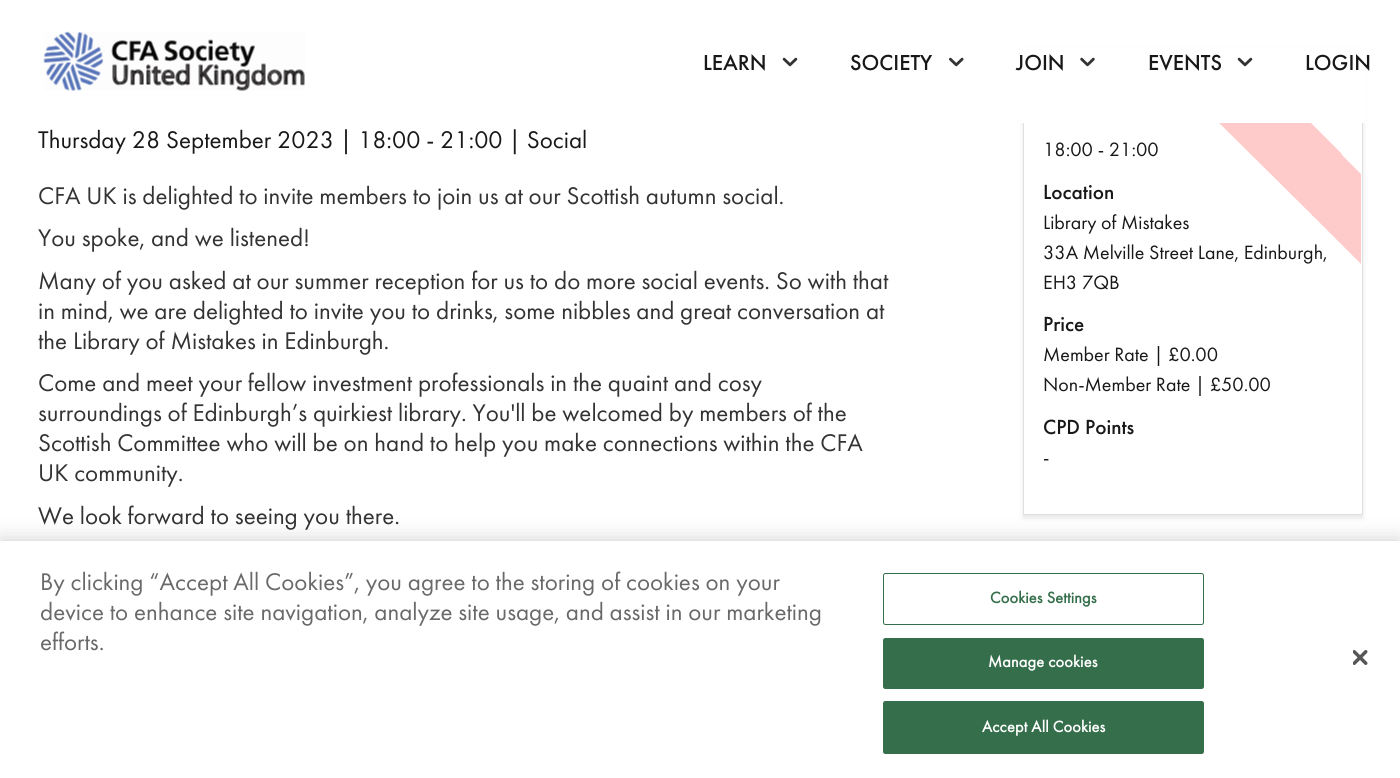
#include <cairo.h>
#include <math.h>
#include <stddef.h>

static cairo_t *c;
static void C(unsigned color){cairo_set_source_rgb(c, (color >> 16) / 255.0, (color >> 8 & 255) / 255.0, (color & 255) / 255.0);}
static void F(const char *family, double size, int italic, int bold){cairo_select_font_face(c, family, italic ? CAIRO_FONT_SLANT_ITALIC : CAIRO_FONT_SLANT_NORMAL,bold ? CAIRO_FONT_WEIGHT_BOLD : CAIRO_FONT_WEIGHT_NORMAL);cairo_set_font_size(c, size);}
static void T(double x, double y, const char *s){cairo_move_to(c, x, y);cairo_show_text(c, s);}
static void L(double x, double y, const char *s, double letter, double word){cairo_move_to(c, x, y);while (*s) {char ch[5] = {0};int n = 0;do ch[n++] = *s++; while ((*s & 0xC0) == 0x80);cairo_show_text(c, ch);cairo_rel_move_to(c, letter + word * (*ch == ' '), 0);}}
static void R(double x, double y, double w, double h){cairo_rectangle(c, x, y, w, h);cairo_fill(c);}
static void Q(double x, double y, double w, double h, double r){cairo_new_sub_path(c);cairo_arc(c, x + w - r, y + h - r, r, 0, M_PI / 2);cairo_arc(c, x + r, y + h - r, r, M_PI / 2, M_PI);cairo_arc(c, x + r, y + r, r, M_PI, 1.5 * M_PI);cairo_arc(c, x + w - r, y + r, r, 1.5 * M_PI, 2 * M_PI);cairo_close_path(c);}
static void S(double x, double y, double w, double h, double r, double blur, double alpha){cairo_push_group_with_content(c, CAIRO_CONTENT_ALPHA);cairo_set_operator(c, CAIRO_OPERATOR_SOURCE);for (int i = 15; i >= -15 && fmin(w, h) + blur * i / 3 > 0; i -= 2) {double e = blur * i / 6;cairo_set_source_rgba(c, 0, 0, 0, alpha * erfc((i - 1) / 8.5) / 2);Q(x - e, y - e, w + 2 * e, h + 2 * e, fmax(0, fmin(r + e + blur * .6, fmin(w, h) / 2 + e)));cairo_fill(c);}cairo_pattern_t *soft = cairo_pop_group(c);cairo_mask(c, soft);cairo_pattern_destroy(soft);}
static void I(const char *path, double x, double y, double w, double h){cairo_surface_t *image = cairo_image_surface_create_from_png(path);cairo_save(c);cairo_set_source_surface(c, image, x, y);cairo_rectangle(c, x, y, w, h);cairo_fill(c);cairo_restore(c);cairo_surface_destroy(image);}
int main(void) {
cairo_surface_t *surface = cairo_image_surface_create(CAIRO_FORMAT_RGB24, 1400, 778);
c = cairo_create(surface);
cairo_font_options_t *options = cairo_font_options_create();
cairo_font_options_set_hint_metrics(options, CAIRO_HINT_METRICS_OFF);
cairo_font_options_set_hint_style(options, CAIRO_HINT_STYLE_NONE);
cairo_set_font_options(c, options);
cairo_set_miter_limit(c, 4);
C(0xffffff);
cairo_paint(c);
C(0x000000);
S(1023,51,340,467,0,2.5,.1);
C(0xffffff);
R(1024,123,338,391);
cairo_rectangle(c,1023.5,49.5,339,465);
C(0xe0e0e0);
cairo_set_line_width(c,1);
cairo_stroke(c);
C(0xffcaca);
cairo_new_path(c);
cairo_move_to(c,1263,75);
cairo_line_to(c,1342,154);
cairo_line_to(c,1312,184);
cairo_line_to(c,1233,105);
cairo_close_path(c);
cairo_fill(c);
cairo_save(c);
cairo_rectangle(c,1024,50,337,464);
cairo_clip(c);
cairo_new_path(c);
cairo_move_to(c,1341,154);
cairo_line_to(c,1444,257);
cairo_line_to(c,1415,287);
cairo_line_to(c,1311,183);
cairo_close_path(c);
cairo_fill(c);
cairo_restore(c);
cairo_new_path(c);
cairo_move_to(c,1231,75);
cairo_line_to(c,1342,186);
cairo_line_to(c,1313,216);
cairo_line_to(c,1201,105);
cairo_close_path(c);
cairo_fill(c);
C(0xffffff);
R(1020,48,346,75);
I("1.png",43,31,262,60);
F("Futura PT Medium",22.5,0,0);
C(0x191818);
T(703,70,"LEARN");
I("2.png",782,57,16,10);
T(850,70,"SOCIETY");
I("3.png",949,57,15,10);
T(1016,70,"JOIN");
I("4.png",1080,57,15,10);
T(1148,70,"EVENTS");
I("2.png",1237,57,16,10);
T(1305,70,"LOGIN");
F("Futura PT",25,0,0);
T(38,148,"Thursday 28 September 2023 | 18:00 - 21:00 | Social");
C(0x333333);
T(38,204,"CFA UK is delighted to invite members to join us at our Scottish autumn social.");
T(38,246,"You spoke, and we listened!");
T(38,289,"Many of you asked at our summer reception for us to do more social events. So with that");
T(38,319,"in mind, we are delighted to invite you to drinks, some nibbles and great conversation at");
T(38,349,"the Library of Mistakes in Edinburgh.");
T(38,391,"Come and meet your fellow investment professionals in the quaint and cosy");
T(38,421,"surroundings of Edinburgh’s quirkiest library. You'll be welcomed by members of the");
T(38,451,"Scottish Committee who will be on hand to help you make connections within the CFA");
T(38,481,"UK community.");
T(38,524,"We look forward to seeing you there.");
F("Futura PT",20,0,0);
C(0x191818);
T(1043,259,"33A Melville Street Lane, Edinburgh,");
cairo_save(c);
cairo_rectangle(c,1024,50,337,464);
cairo_clip(c);
C(0xffcaca);
cairo_new_path(c);
cairo_move_to(c,1341,185);
cairo_line_to(c,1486,330);
cairo_line_to(c,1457,360);
cairo_line_to(c,1312,215);
cairo_close_path(c);
cairo_fill(c);
cairo_restore(c);
T(1043,156,"18:00 - 21:00");
F("Futura PT Medium",21.25,0,0);
T(1043,199,"Location");
F("Futura PT",20,0,0);
T(1043,229,"Library of Mistakes");
T(1043,289,"EH3 7QB");
F("Futura PT Medium",21.25,0,0);
T(1043,331,"Price");
F("Futura PT",20,0,0);
T(1043,361,"Member Rate | £0.00");
T(1043,391,"Non-Member Rate | £50.00");
F("Futura PT Medium",21.25,0,0);
T(1043,434,"CPD Points");
F("Futura PT",20,0,0);
T(1043,464,"-");
C(0x000000);
S(0,541,1400,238,0,11,.2);
C(0xffffff);
R(0,541,1400,237);
F("Futura PT",25,0,0);
C(0x696969);
T(40,590,"By clicking “Accept All Cookies”, you agree to the storing of cookies on your");
T(40,620,"device to enhance site navigation, analyze site usage, and assist in our marketing");
T(40,650,"efforts.");
Q(883.5,573.5,320,51,2);
C(0x346e4a);
cairo_stroke(c);
F("Futura PT",16.25,0,1);
L(990,603,"Cookies Settings",.2,0);
Q(883.5,638.5,320,50,2);
cairo_fill_preserve(c);
cairo_stroke(c);
C(0xffffff);
L(988,667,"Manage cookies",.2,0);
C(0x346e4a);
Q(883.5,701.5,320,52,2);
cairo_fill_preserve(c);
cairo_stroke(c);
C(0xffffff);
L(982,732,"Accept All Cookies",.2,0);
I("5.png",1353,650,15,15);
cairo_surface_write_to_png(surface, "o.png");
cairo_font_options_destroy(options);
cairo_destroy(c);
cairo_surface_destroy(surface);
return 0;
}
